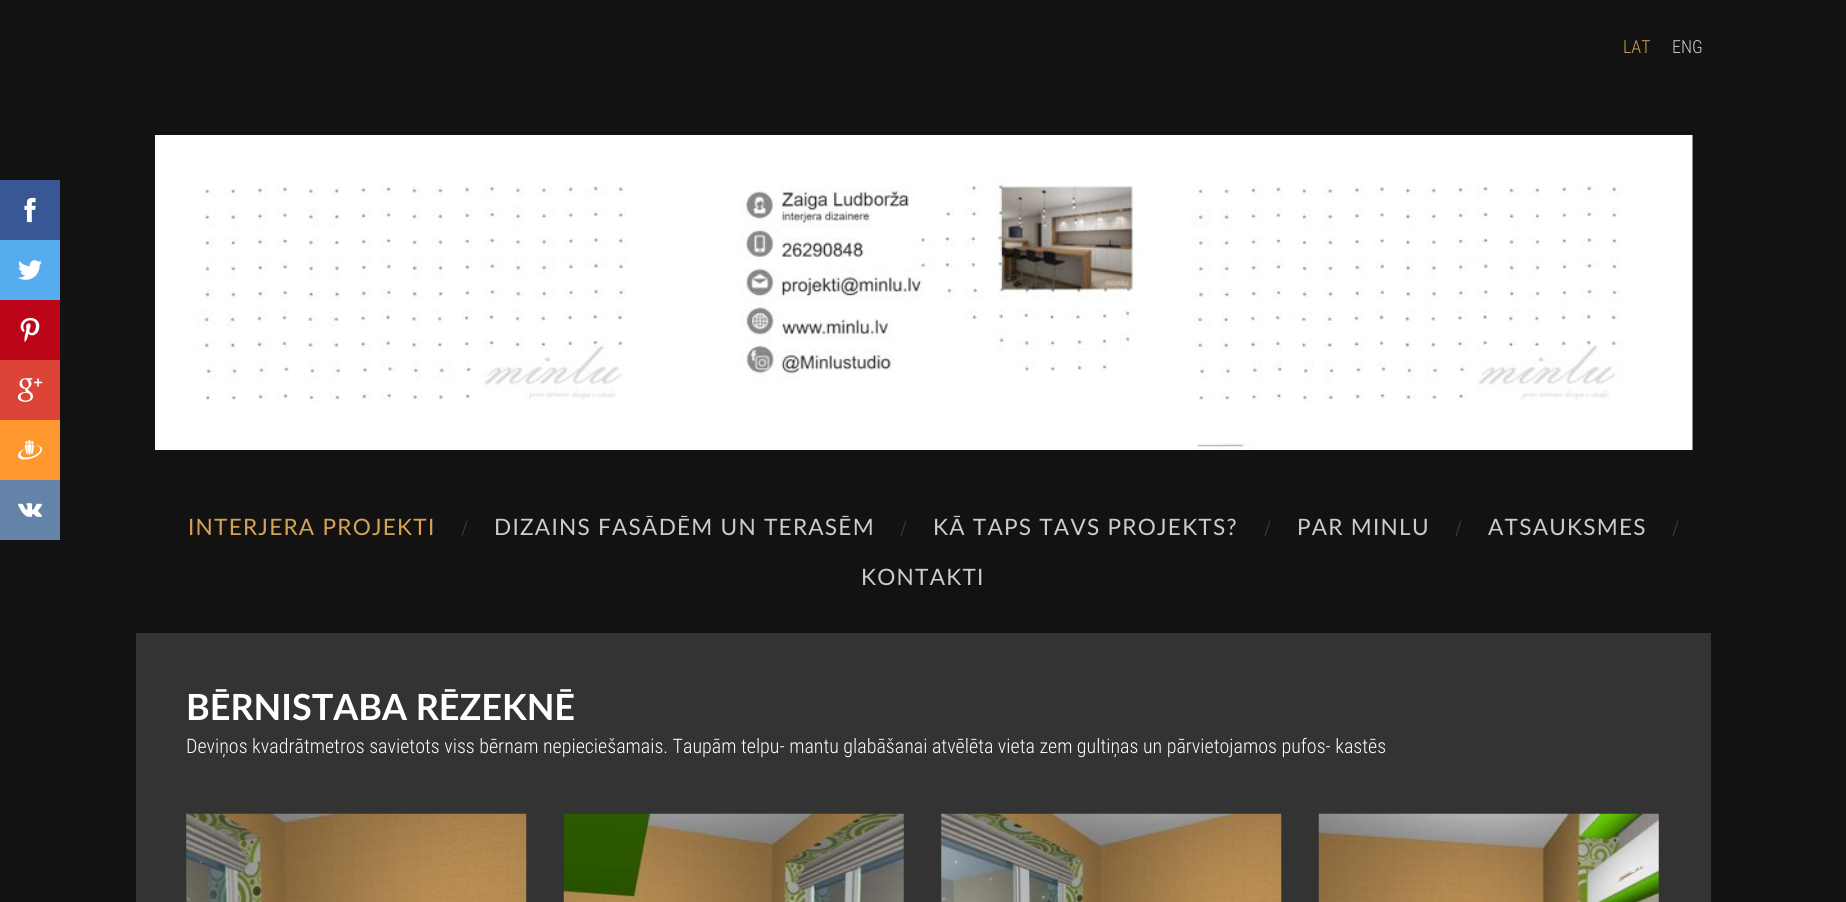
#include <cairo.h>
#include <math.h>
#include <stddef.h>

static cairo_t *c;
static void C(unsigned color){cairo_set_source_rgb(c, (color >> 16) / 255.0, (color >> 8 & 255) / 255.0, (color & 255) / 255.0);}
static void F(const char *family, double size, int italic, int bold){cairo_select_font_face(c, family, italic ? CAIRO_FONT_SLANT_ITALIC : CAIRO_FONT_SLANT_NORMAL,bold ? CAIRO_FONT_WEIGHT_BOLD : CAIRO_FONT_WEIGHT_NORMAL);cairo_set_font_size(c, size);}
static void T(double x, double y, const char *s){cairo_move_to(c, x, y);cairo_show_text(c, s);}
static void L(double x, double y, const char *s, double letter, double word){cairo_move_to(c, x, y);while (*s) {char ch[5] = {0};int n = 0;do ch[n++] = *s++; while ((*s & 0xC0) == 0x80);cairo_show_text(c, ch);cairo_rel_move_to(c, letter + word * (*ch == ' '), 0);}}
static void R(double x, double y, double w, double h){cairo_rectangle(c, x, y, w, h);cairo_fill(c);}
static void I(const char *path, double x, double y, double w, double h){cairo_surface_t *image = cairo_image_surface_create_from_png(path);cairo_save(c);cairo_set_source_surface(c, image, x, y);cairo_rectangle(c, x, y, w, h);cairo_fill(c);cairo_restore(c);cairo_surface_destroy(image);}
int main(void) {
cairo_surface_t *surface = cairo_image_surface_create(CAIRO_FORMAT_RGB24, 1846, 902);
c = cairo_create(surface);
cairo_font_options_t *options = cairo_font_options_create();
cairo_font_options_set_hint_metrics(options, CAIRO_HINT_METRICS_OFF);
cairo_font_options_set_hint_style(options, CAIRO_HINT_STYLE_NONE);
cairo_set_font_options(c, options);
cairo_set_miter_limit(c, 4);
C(0x121212);
cairo_paint(c);
C(0x3a5795);
R(0,180,60,60);
I("1.png",24,197,12,26);
C(0x55acee);
R(0,240,60,60);
I("2.png",18,260,24,20);
C(0xbc0618);
R(0,300,60,60);
I("3.png",20,317,20,25);
C(0xdb4437);
R(0,360,60,60);
I("4.png",17,378,26,24);
C(0xfe972d);
R(0,420,60,60);
I("5.png",17,440,26,20);
C(0x6383a8);
R(0,480,60,60);
I("6.png",18,503,24,14);
F("Roboto Condensed Light",18,0,0);
C(0xd5a353);
T(1623,53,"LAT");
C(0xd0cac8);
T(1672,53,"ENG");
I("7.png",155,135,1538,315);
F("Lato",22.6,0,0);
C(0xd5a353);
L(188,535,"INTERJERA PROJEKTI",1.25,0);
F("Roboto Condensed Light",20,0,0);
C(0x414141);
T(461,535,"/");
F("Lato",22.6,0,0);
C(0xd0cac8);
L(494,535,"DIZAINS FASĀDĒM UN TERASĒM",1.25,0);
F("Roboto Condensed Light",20,0,0);
C(0x414141);
T(900,535,"/");
F("Lato",22.6,0,0);
C(0xd0cac8);
L(933,535,"KĀ TAPS TAVS PROJEKTS?",1.25,0);
F("Roboto Condensed Light",20,0,0);
C(0x414141);
T(1264,535,"/");
F("Lato",22.6,0,0);
C(0xd0cac8);
L(1297,535,"PAR MINLU",1.25,0);
F("Roboto Condensed Light",20,0,0);
C(0x414141);
T(1455,535,"/");
F("Lato",22.6,0,0);
C(0xd0cac8);
L(1488,535,"ATSAUKSMES",1.25,0);
F("Roboto Condensed Light",20,0,0);
C(0x414141);
T(1672,535,"/");
F("Lato",22.6,0,0);
C(0xd0cac8);
L(861,585,"KONTAKTI",1.25,0);
C(0x333333);
R(136,633,1575,269);
F("Lato",36,0,1);
C(0xffffff);
T(186,720,"BĒRNISTABA RĒZEKNĒ");
F("Roboto Condensed Light",20,0,0);
T(186,753,"Deviņos kvadrātmetros savietots viss bērnam nepieciešamais. Taupām telpu- mantu glabāšanai atvēlēta vieta zem gultiņas un pārvietojamos pufos- kastēs");
I("8.png",186,813,341,89);
I("9.png",563,813,341,89);
I("10.png",941,813,341,89);
I("11.png",1318,813,341,89);
cairo_surface_write_to_png(surface, "o.png");
cairo_font_options_destroy(options);
cairo_destroy(c);
cairo_surface_destroy(surface);
return 0;
}
